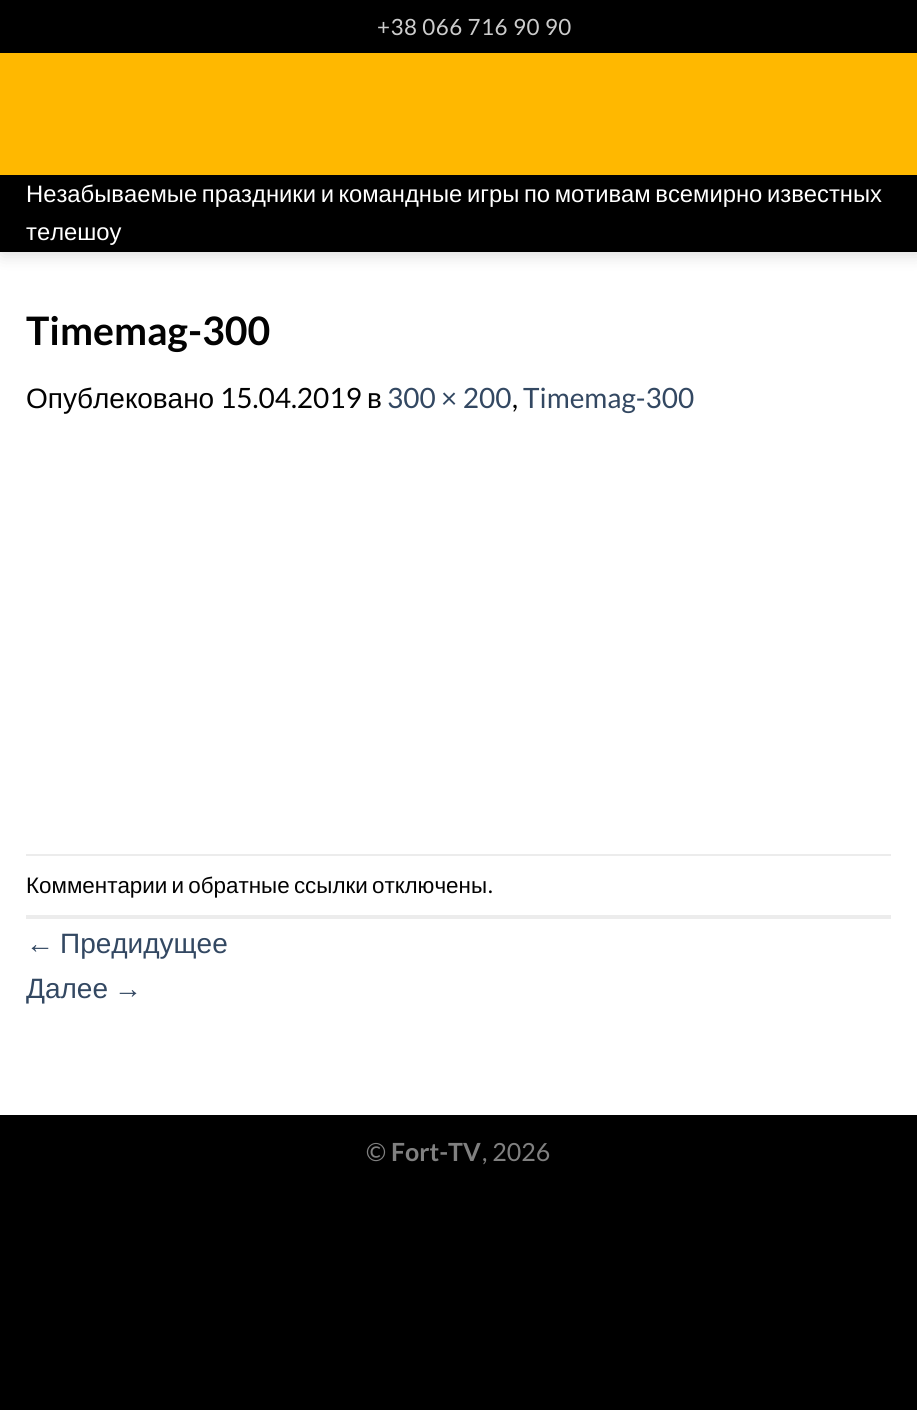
#include <cairo.h>
#include <math.h>
#include <stddef.h>

static cairo_t *c;
static void C(unsigned color){cairo_set_source_rgb(c, (color >> 16) / 255.0, (color >> 8 & 255) / 255.0, (color & 255) / 255.0);}
static void F(const char *family, double size, int italic, int bold){cairo_select_font_face(c, family, italic ? CAIRO_FONT_SLANT_ITALIC : CAIRO_FONT_SLANT_NORMAL,bold ? CAIRO_FONT_WEIGHT_BOLD : CAIRO_FONT_WEIGHT_NORMAL);cairo_set_font_size(c, size);}
static void T(double x, double y, const char *s){cairo_move_to(c, x, y);cairo_show_text(c, s);}
static void L(double x, double y, const char *s, double letter, double word){cairo_move_to(c, x, y);while (*s) {char ch[5] = {0};int n = 0;do ch[n++] = *s++; while ((*s & 0xC0) == 0x80);cairo_show_text(c, ch);cairo_rel_move_to(c, letter + word * (*ch == ' '), 0);}}
static void R(double x, double y, double w, double h){cairo_rectangle(c, x, y, w, h);cairo_fill(c);}
static void Q(double x, double y, double w, double h, double r){cairo_new_sub_path(c);cairo_arc(c, x + w - r, y + h - r, r, 0, M_PI / 2);cairo_arc(c, x + r, y + h - r, r, M_PI / 2, M_PI);cairo_arc(c, x + r, y + r, r, M_PI, 1.5 * M_PI);cairo_arc(c, x + w - r, y + r, r, 1.5 * M_PI, 2 * M_PI);cairo_close_path(c);}
static void S(double x, double y, double w, double h, double r, double blur, double alpha){cairo_push_group_with_content(c, CAIRO_CONTENT_ALPHA);cairo_set_operator(c, CAIRO_OPERATOR_SOURCE);for (int i = 15; i >= -15 && fmin(w, h) + blur * i / 3 > 0; i -= 2) {double e = blur * i / 6;cairo_set_source_rgba(c, 0, 0, 0, alpha * erfc((i - 1) / 8.5) / 2);Q(x - e, y - e, w + 2 * e, h + 2 * e, fmax(0, fmin(r + e + blur * .6, fmin(w, h) / 2 + e)));cairo_fill(c);}cairo_pattern_t *soft = cairo_pop_group(c);cairo_mask(c, soft);cairo_pattern_destroy(soft);}
int main(void) {
cairo_surface_t *surface = cairo_image_surface_create(CAIRO_FORMAT_RGB24, 917, 1410);
c = cairo_create(surface);
cairo_font_options_t *options = cairo_font_options_create();
cairo_font_options_set_hint_metrics(options, CAIRO_HINT_METRICS_OFF);
cairo_font_options_set_hint_style(options, CAIRO_HINT_STYLE_NONE);
cairo_set_font_options(c, options);
cairo_set_miter_limit(c, 4);
C(0x000000);
cairo_paint(c);
C(0xffffff);
R(0,252,917,863);
C(0x000000);
S(2,2,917,252,0,9,.15);
C(0xffb800);
R(0,53,917,122);
F("Lato",22.4,0,0);
C(0xcccccc);
L(377,35,"+38 066 716 90 90",.5,0);
F("Liberation Sans",23.8,0,0);
C(0xffffff);
L(26,202,"Незабываемые праздники и командные игры по мотивам всемирно известных",0,-2);
T(26,240,"телешоу");
F("Lato",39.25,0,1);
C(0x020202);
T(26,345,"Timemag-300");
F("Liberation Sans",28,0,0);
T(26,408,"Опублековано");
F("Lato",28,0,0);
T(220,408,"15.04.2019");
F("Liberation Sans",28,0,0);
T(367,408,"в");
F("Lato",28,0,0);
C(0x334862);
T(387,408,"300 × 200");
C(0x020202);
T(512,408,",");
C(0x334862);
T(523,408,"Timemag-300");
C(0xececec);
R(26,854,865,2);
R(26,915,865,4);
F("Liberation Sans",22.4,0,0);
C(0x020202);
L(26,893,"Комментарии и обратные ссылки отключены",0,-2);
F("Lato",22.4,0,0);
T(488,893,".");
F("Liberation Sans",28,0,0);
C(0x334862);
T(26,953,"←");
T(60,953,"Предидущее");
T(26,998,"Далее");
T(114,998,"→");
F("Lato",25,0,0);
C(0x808080);
T(366,1161,"©");
F("Lato",25,0,1);
T(391,1161,"Fort-TV");
F("Lato",25,0,0);
T(482,1161,", 2026");
cairo_surface_write_to_png(surface, "o.png");
cairo_font_options_destroy(options);
cairo_destroy(c);
cairo_surface_destroy(surface);
return 0;
}
